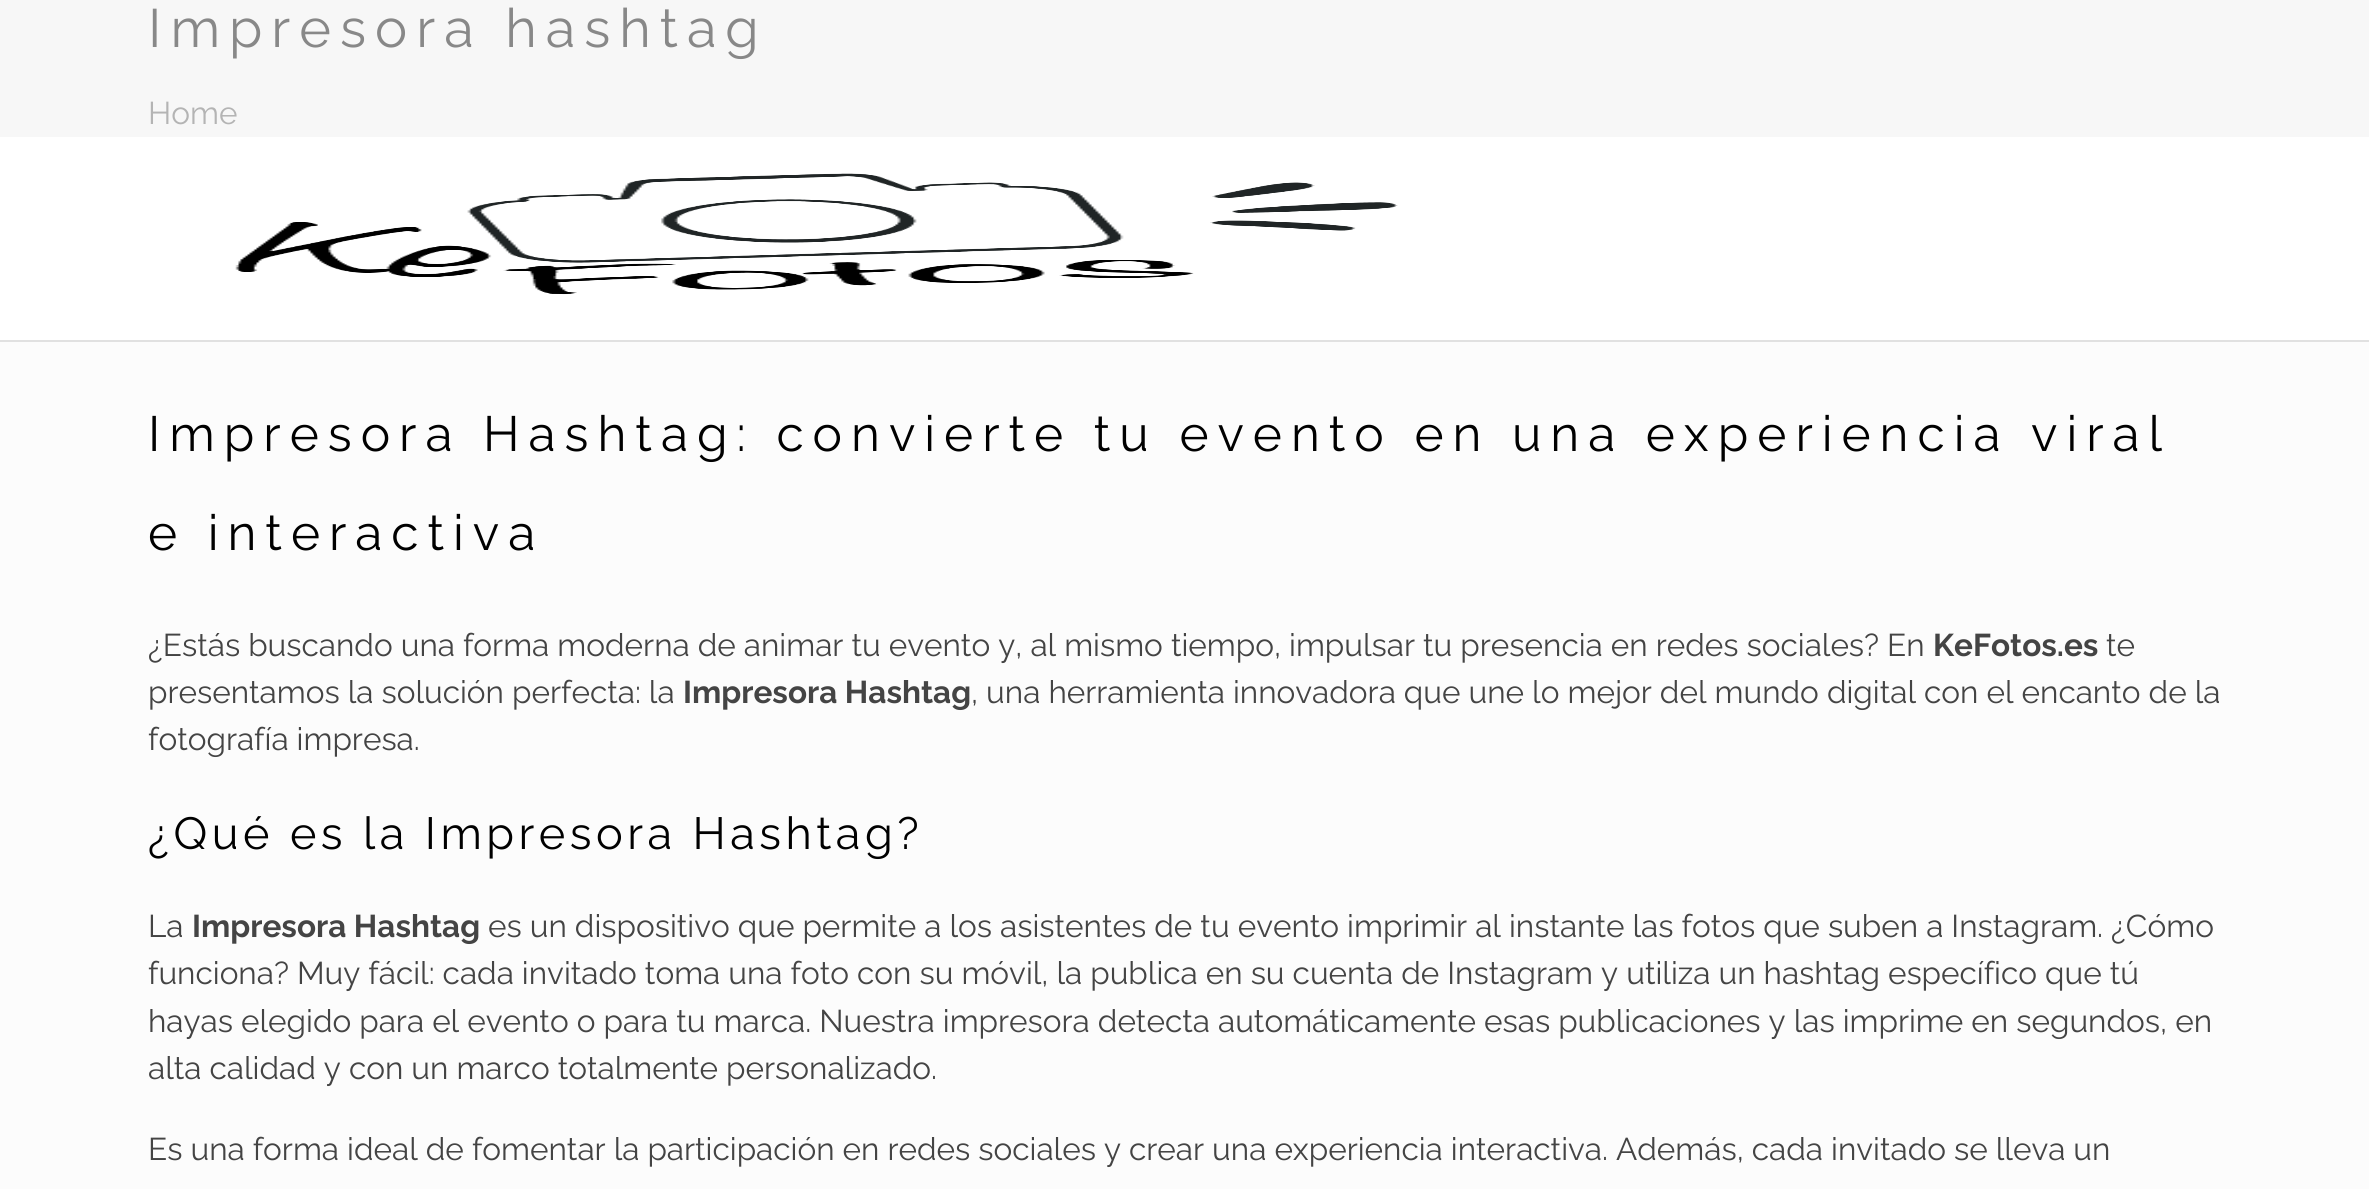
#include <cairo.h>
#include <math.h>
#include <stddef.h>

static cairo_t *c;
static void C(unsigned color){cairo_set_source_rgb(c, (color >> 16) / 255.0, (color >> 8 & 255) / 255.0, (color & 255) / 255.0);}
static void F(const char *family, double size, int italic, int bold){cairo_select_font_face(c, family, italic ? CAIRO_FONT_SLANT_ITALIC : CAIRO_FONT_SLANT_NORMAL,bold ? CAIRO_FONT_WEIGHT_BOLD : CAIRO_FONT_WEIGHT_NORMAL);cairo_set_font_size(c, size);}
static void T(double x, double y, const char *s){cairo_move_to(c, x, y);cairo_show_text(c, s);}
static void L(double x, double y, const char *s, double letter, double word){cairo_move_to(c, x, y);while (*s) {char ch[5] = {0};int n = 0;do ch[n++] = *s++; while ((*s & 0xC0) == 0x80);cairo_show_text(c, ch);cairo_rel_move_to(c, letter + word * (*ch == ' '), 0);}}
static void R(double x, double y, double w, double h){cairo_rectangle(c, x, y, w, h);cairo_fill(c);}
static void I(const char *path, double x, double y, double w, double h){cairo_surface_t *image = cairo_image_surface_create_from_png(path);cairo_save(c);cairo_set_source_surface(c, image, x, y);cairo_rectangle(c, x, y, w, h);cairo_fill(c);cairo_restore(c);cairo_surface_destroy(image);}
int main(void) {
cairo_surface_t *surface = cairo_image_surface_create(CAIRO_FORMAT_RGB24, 2369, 1189);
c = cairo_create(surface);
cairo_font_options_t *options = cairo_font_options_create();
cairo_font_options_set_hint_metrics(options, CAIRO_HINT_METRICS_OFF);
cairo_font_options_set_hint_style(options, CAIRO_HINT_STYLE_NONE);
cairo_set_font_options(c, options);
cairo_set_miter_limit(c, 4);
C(0xfcfcfc);
cairo_paint(c);
C(0xf7f7f7);
R(0,0,2369,137);
F("Raleway",54,0,0);
C(0x888888);
L(148,47,"Impresora hashtag",9,0);
F("Raleway",31.5,0,0);
C(0xb4b4b4);
T(148,124,"Home");
C(0xffffff);
R(0,137,2369,203);
C(0xe1e1e1);
R(0,340,2369,2);
I("1.png",235,173,1163,122);
F("Raleway",49.5,0,0);
C(0x000000);
L(148,451,"Impresora Hashtag: convierte tu evento en una experiencia viral",9,0);
L(148,550,"e interactiva",9,0);
F("Raleway",31.5,0,0);
C(0x444444);
T(148,656,"¿Estás buscando una forma moderna de animar tu evento y, al mismo tiempo, impulsar tu presencia en redes sociales? En");
F("Raleway",31.5,0,1);
T(1933,656,"KeFotos.es");
F("Raleway",31.5,0,0);
T(2106,656,"te");
T(148,703,"presentamos la solución perfecta: la");
F("Raleway",31.5,0,1);
T(683,703,"Impresora Hashtag");
F("Raleway",31.5,0,0);
T(971,703,", una herramienta innovadora que une lo mejor del mundo digital con el encanto de la");
T(148,750,"fotografía impresa.");
F("Raleway",45,0,0);
C(0x000000);
L(148,849,"¿Qué es la Impresora Hashtag?",4.5,0);
F("Raleway",31.5,0,0);
C(0x444444);
T(148,937,"La");
F("Raleway",31.5,0,1);
T(192,937,"Impresora Hashtag");
F("Raleway",31.5,0,0);
T(488,937,"es un dispositivo que permite a los asistentes de tu evento imprimir al instante las fotos que suben a Instagram. ¿Cómo");
T(148,984,"funciona? Muy fácil: cada invitado toma una foto con su móvil, la publica en su cuenta de Instagram y utiliza un hashtag específico que tú");
T(148,1032,"hayas elegido para el evento o para tu marca. Nuestra impresora detecta automáticamente esas publicaciones y las imprime en segundos, en");
T(148,1079,"alta calidad y con un marco totalmente personalizado.");
T(148,1160,"Es una forma ideal de fomentar la participación en redes sociales y crear una experiencia interactiva. Además, cada invitado se lleva un");
cairo_surface_write_to_png(surface, "o.png");
cairo_font_options_destroy(options);
cairo_destroy(c);
cairo_surface_destroy(surface);
return 0;
}
